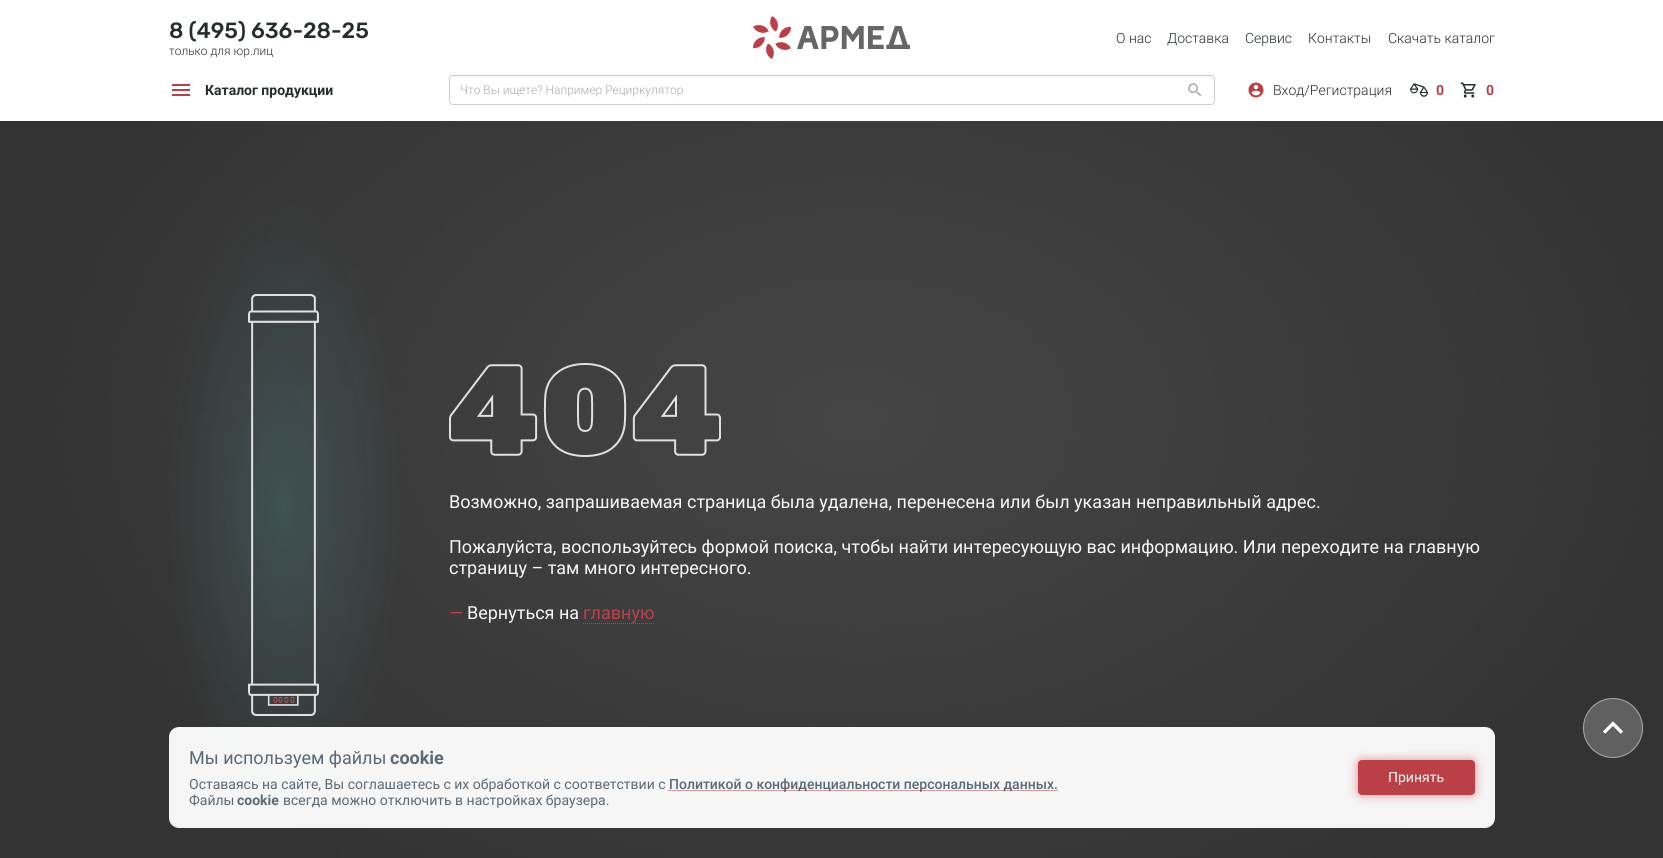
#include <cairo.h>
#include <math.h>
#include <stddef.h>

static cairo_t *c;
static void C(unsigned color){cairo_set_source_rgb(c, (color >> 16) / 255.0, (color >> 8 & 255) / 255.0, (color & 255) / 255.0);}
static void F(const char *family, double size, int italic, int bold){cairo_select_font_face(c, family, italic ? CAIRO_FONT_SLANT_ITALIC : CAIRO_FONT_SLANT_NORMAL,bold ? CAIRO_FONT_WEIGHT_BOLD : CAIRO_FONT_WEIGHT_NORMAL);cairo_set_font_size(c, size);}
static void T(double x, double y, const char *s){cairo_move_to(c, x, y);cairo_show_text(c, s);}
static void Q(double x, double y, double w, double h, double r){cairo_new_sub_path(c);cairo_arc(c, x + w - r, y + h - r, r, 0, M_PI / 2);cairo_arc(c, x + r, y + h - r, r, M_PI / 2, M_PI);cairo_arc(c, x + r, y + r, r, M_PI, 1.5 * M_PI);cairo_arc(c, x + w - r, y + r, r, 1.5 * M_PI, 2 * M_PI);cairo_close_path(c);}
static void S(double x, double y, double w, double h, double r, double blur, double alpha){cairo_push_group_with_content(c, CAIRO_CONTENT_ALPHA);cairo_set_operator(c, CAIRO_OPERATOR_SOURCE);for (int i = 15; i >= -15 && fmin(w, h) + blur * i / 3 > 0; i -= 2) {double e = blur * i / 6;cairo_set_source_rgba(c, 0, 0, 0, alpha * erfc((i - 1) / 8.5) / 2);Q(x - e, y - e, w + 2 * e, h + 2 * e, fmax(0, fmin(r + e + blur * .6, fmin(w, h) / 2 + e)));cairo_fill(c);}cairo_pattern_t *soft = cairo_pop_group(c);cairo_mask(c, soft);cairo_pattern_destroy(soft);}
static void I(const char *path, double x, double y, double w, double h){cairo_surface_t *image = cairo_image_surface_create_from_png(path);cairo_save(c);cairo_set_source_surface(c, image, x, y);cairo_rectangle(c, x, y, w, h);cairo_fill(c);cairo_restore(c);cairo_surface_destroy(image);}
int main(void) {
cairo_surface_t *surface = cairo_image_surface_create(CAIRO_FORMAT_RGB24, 1663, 858);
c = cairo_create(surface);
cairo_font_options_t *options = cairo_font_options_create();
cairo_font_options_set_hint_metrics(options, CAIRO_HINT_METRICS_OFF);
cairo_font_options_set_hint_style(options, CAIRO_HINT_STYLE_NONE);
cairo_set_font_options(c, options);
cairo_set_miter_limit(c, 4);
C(0xffffff);
cairo_paint(c);
F("Rubik Medium",22,0,0);
C(0x262e2b);
T(169,38,"8 (495) 636-28-25");
F("Roboto Light",12,0,0);
T(169,55,"только для юр.лиц");
I("1.png",753,16,157,43);
F("Roboto Light",14,0,0);
T(1116,43,"О нас");
T(1167,43,"Доставка");
T(1245,43,"Сервис");
T(1308,43,"Контакты");
T(1388,43,"Скачать каталог");
I("2.png",172,84,18,12);
F("Roboto",14,0,1);
T(205,95,"Каталог продукции");
Q(449.5,75.5,765,29,3.5);
C(0xcccccc);
cairo_set_line_width(c,1);
cairo_stroke(c);
F("Roboto Light",12,0,0);
C(0xa9a9a9);
T(460,94,"Что Вы ищете? Например Рециркулятор");
I("3.png",1188,83,14,14);
I("4.png",1248,82,16,16);
F("Roboto Light",14,0,0);
C(0x262e2b);
T(1273,95,"Вход/Регистрация");
I("5.png",1410,83,18,14);
F("Roboto",14,0,1);
C(0xba4046);
T(1436,95,"0");
I("6.png",1460,82,16,16);
T(1486,95,"0");
I("7.png",0,121,1663,737);
I("8.png",248,294,71,422);
I("9.png",449,363,272,94);
F("Roboto",18,0,0);
C(0xf6f6f6);
T(449,508,"Возможно, запрашиваемая страница была удалена, перенесена или был указан неправильный адрес.");
T(449,553,"Пожалуйста, воспользуйтесь формой поиска, чтобы найти интересующую вас информацию. Или переходите на главную");
T(449,574,"страницу – там много интересного.");
C(0xba4046);
T(449,619,"—");
C(0xf6f6f6);
T(467,619,"Вернуться на");
C(0xba4046);
T(583,619,"главную");
cairo_new_path(c);
cairo_move_to(c,583,623.5);
cairo_line_to(c,655,623.5);
cairo_set_dash(c,(double[]){1,1},2,0);
cairo_stroke(c);
cairo_set_source_rgba(c,1,1,1,0.95);
Q(169,727,1326,101,10);
cairo_fill(c);
C(0x5a6a77);
T(189,764,"Мы используем файлы");
F("Roboto",18,0,1);
T(390,764,"cookie");
F("Roboto",14,0,0);
T(189,789,"Оставаясь на сайте, Вы соглашаетесь с их обработкой с соответствии с");
cairo_new_path(c);
cairo_move_to(c,668.5,790.5);
cairo_line_to(c,1057.5,790.5);
C(0xba4046);
cairo_stroke(c);
F("Roboto Medium",14,0,0);
C(0x5a6a77);
T(669,789,"Политикой о конфиденциальности персональных данных.");
F("Roboto",14,0,0);
T(189,805,"Файлы");
F("Roboto",14,0,1);
T(237,805,"cookie");
F("Roboto",14,0,0);
T(283,805,"всегда можно отключить в настройках браузера.");
C(0xca2032);
S(1358,760,117,35,4,5,.5);
C(0xba4046);
Q(1358.5,760.5,116,34,3.5);
cairo_fill_preserve(c);
cairo_set_dash(c,NULL,0,0);
cairo_stroke(c);
C(0xffffff);
T(1388,782,"Принять");
C(0x606060);
cairo_new_path(c);
cairo_arc(c,1613,728,30,0,2 * M_PI);
cairo_fill(c);
cairo_arc(c,1613,728,29.5,0,2 * M_PI);
cairo_set_source_rgba(c,0.945,0.945,0.957,0.5);
cairo_stroke(c);
I("10.png",1603,721,20,13);
cairo_surface_write_to_png(surface, "o.png");
cairo_font_options_destroy(options);
cairo_destroy(c);
cairo_surface_destroy(surface);
return 0;
}
